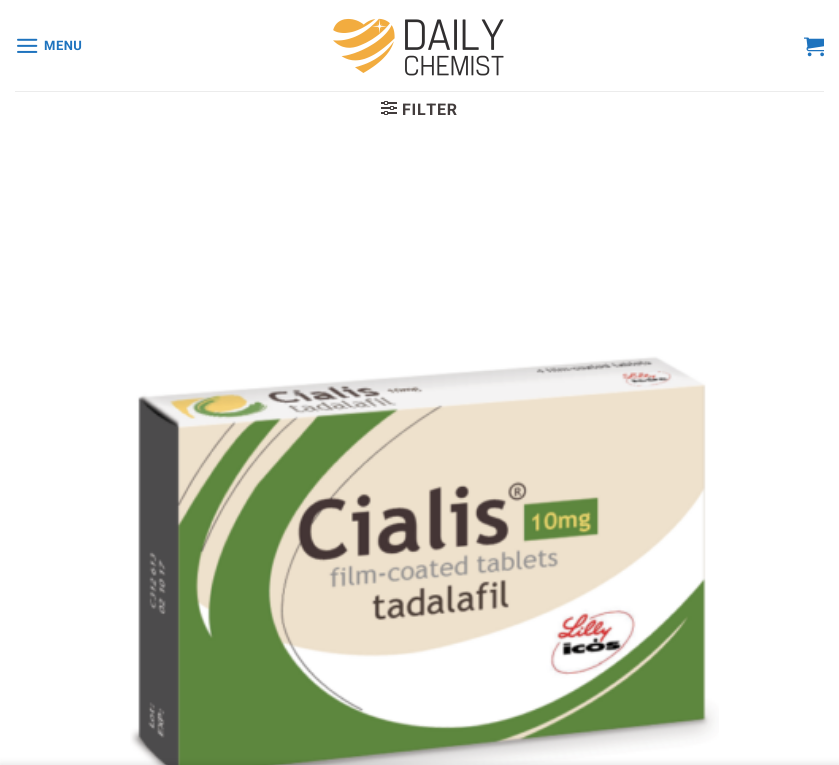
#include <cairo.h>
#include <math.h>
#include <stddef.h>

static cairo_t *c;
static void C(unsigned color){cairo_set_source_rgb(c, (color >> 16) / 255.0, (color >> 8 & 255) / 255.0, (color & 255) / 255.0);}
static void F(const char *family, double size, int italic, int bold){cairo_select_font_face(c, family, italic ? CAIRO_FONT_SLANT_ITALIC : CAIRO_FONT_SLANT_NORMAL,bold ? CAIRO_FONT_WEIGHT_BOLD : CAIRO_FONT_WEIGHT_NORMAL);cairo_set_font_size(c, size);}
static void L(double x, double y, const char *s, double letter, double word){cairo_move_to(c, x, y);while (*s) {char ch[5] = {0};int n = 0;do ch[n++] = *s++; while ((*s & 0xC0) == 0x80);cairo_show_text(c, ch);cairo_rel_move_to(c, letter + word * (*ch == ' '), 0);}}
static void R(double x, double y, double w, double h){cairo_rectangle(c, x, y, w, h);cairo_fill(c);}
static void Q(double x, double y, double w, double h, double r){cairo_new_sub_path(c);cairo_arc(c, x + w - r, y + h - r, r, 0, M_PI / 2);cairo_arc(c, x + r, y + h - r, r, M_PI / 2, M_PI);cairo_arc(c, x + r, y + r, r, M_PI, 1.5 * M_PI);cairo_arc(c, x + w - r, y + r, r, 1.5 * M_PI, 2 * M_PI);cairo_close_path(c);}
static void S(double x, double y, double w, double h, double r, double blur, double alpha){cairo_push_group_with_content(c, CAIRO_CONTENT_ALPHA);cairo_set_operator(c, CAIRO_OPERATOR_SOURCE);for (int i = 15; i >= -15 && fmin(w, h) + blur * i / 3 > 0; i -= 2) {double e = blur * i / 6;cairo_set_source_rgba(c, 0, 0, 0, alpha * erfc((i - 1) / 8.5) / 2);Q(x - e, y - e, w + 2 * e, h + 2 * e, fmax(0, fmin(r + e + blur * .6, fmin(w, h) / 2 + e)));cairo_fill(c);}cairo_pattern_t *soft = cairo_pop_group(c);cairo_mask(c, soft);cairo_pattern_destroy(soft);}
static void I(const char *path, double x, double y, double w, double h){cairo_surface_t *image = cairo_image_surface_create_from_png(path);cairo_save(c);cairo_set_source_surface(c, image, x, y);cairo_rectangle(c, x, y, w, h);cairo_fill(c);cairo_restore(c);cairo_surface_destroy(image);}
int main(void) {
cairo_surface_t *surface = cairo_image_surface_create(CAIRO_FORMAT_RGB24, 839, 765);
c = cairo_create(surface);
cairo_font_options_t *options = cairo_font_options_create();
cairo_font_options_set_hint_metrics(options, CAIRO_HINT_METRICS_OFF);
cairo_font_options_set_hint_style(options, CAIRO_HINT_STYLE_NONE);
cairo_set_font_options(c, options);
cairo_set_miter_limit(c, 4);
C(0xffffff);
cairo_paint(c);
I("1.png",17,38,21,15);
F("Roboto",13,0,1);
C(0x1e73be);
L(44,50,"MENU",.5,0);
I("2.png",333,18,171,58);
I("3.png",804,37,20,20);
C(0xececec);
R(15,91,809,1);
I("4.png",381,101,16,14);
F("Roboto",16,0,1);
C(0x423c3c);
L(402,115,"FILTER",.75,0);
I("5.png",130,356,589,409);
C(0x000000);
S(0,765,839,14,0,4.5,.14);
cairo_surface_write_to_png(surface, "o.png");
cairo_font_options_destroy(options);
cairo_destroy(c);
cairo_surface_destroy(surface);
return 0;
}
